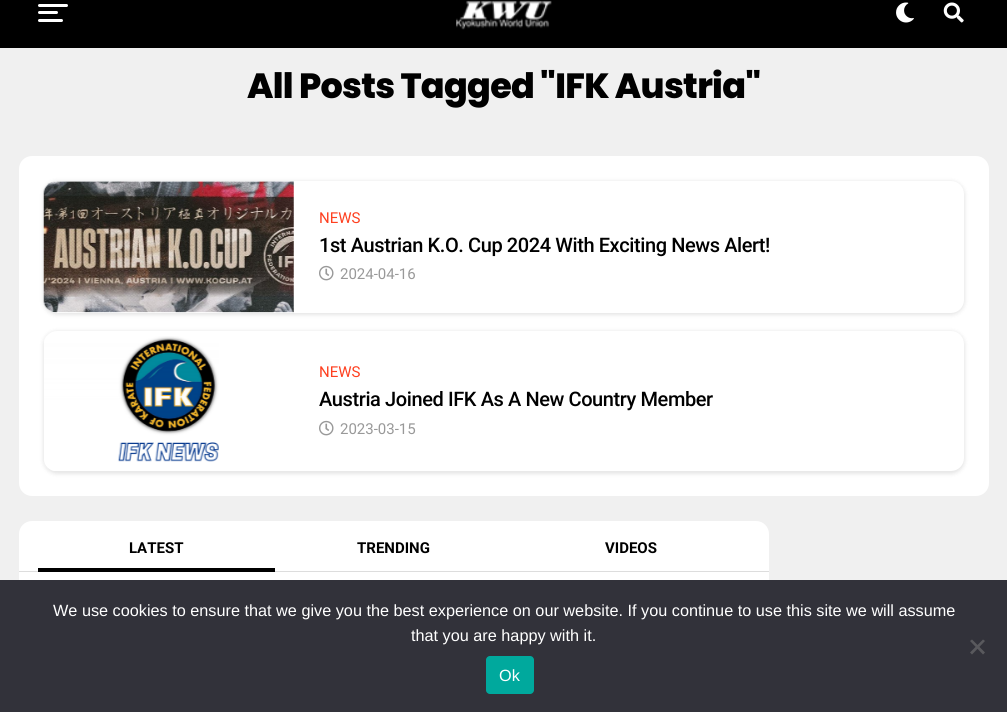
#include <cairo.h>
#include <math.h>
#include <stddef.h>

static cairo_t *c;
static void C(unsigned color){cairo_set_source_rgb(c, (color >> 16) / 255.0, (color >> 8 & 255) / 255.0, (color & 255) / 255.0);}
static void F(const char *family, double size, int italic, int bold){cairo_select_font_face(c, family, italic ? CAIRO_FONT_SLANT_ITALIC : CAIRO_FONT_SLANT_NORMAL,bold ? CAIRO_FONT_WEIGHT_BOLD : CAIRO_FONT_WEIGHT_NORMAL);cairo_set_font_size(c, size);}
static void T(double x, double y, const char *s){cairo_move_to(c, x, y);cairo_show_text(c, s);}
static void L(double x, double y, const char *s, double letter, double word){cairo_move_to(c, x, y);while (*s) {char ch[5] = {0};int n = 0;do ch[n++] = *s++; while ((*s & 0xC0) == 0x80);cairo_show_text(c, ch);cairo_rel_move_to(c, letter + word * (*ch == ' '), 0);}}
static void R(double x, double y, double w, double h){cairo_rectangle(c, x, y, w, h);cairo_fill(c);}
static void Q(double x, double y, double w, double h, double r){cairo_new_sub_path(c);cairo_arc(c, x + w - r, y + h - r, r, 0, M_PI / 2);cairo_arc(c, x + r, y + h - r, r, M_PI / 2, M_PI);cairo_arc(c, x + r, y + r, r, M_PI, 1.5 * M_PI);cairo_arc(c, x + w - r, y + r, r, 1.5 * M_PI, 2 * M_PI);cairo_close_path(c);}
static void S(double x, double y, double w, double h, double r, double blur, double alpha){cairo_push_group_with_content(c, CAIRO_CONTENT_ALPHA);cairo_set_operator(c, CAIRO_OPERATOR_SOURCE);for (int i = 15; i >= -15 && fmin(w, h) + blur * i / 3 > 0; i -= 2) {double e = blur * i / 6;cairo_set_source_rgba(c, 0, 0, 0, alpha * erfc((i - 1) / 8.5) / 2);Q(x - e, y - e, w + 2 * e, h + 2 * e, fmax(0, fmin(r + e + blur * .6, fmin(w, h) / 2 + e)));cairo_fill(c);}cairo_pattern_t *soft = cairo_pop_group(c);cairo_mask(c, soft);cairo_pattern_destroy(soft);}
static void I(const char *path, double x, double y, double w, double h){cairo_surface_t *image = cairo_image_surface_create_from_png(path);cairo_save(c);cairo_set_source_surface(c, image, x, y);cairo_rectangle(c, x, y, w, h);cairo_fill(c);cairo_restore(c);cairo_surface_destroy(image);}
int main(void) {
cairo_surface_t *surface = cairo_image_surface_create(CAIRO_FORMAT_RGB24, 1007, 712);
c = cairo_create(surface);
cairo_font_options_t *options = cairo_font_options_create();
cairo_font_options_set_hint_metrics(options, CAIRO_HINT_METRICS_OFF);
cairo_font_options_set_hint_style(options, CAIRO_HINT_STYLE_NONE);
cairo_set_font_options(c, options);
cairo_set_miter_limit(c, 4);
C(0xf0f0f0);
cairo_paint(c);
C(0x000000);
R(0,0,1007,48);
C(0xffffff);
Q(38,4,30,3,1.5);
cairo_fill(c);
Q(38,11,20,3,1.5);
cairo_fill(c);
Q(38,19,25,3,1.5);
cairo_fill(c);
I("1.png",456,0,96,30);
I("2.png",896,2,18,21);
I("3.png",943,2,21,21);
F("Poppins ExtraBold",35,0,0);
C(0x000000);
L(247,98,"All Posts Tagged \"IFK Austria\"",-.7,0);
C(0xffffff);
Q(19,156,970,340,13);
cairo_fill(c);
C(0x000000);
S(43,181,922,134,14,2,.1);
C(0xffffff);
Q(44,181,920,132,13);
cairo_fill(c);
I("4.png",43,181,251,132);
F("Roboto",15,0,0);
C(0xfe4020);
T(319,223,"NEWS");
F("Roboto Medium",20,0,0);
C(0x000000);
L(319,252,"1st Austrian K.O. Cup 2024 With Exciting News Alert!",-.4,0);
I("5.png",319,265,15,16);
F("Roboto",15,0,0);
C(0x999999);
T(340,279,"2024-04-16");
C(0x000000);
S(43,331,922,143,14,2,.1);
C(0xffffff);
Q(44,331,920,140,13);
cairo_fill(c);
I("6.png",44,336,175,135);
C(0xfe4020);
T(319,377,"NEWS");
F("Roboto Medium",20,0,0);
C(0x000000);
L(319,406,"Austria Joined IFK As A New Country Member",-.4,0);
I("5.png",319,420,15,16);
F("Roboto",15,0,0);
C(0x999999);
T(340,434,"2023-03-15");
C(0xffffff);
Q(19,521,750,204,13);
cairo_fill(c);
C(0xdddddd);
R(19,571,750,1);
C(0x000000);
R(38,568,237,4);
F("Roboto",15,0,1);
T(129,553,"LATEST");
T(357,553,"TRENDING");
T(605,553,"VIDEOS");
C(0x32323a);
R(0,580,1007,132);
F("Liberation Sans",16.25,0,0);
C(0xffffff);
T(53,616,"We use cookies to ensure that we give you the best experience on our website. If you continue to use this site we will assume");
T(411,641,"that you are happy with it.");
C(0x59595d);
cairo_new_path(c);
cairo_move_to(c,983,639.5);
cairo_line_to(c,985,641);
cairo_line_to(c,972,654.5);
cairo_line_to(c,970,652.5);
cairo_close_path(c);
cairo_fill(c);
cairo_new_path(c);
cairo_move_to(c,970,641);
cairo_line_to(c,972,639.5);
cairo_line_to(c,985,652.5);
cairo_line_to(c,983,654.5);
cairo_close_path(c);
cairo_fill(c);
C(0x00a99d);
Q(486,656,48,38,4);
cairo_fill(c);
C(0xffffff);
T(499,681,"Ok");
cairo_surface_write_to_png(surface, "o.png");
cairo_font_options_destroy(options);
cairo_destroy(c);
cairo_surface_destroy(surface);
return 0;
}
